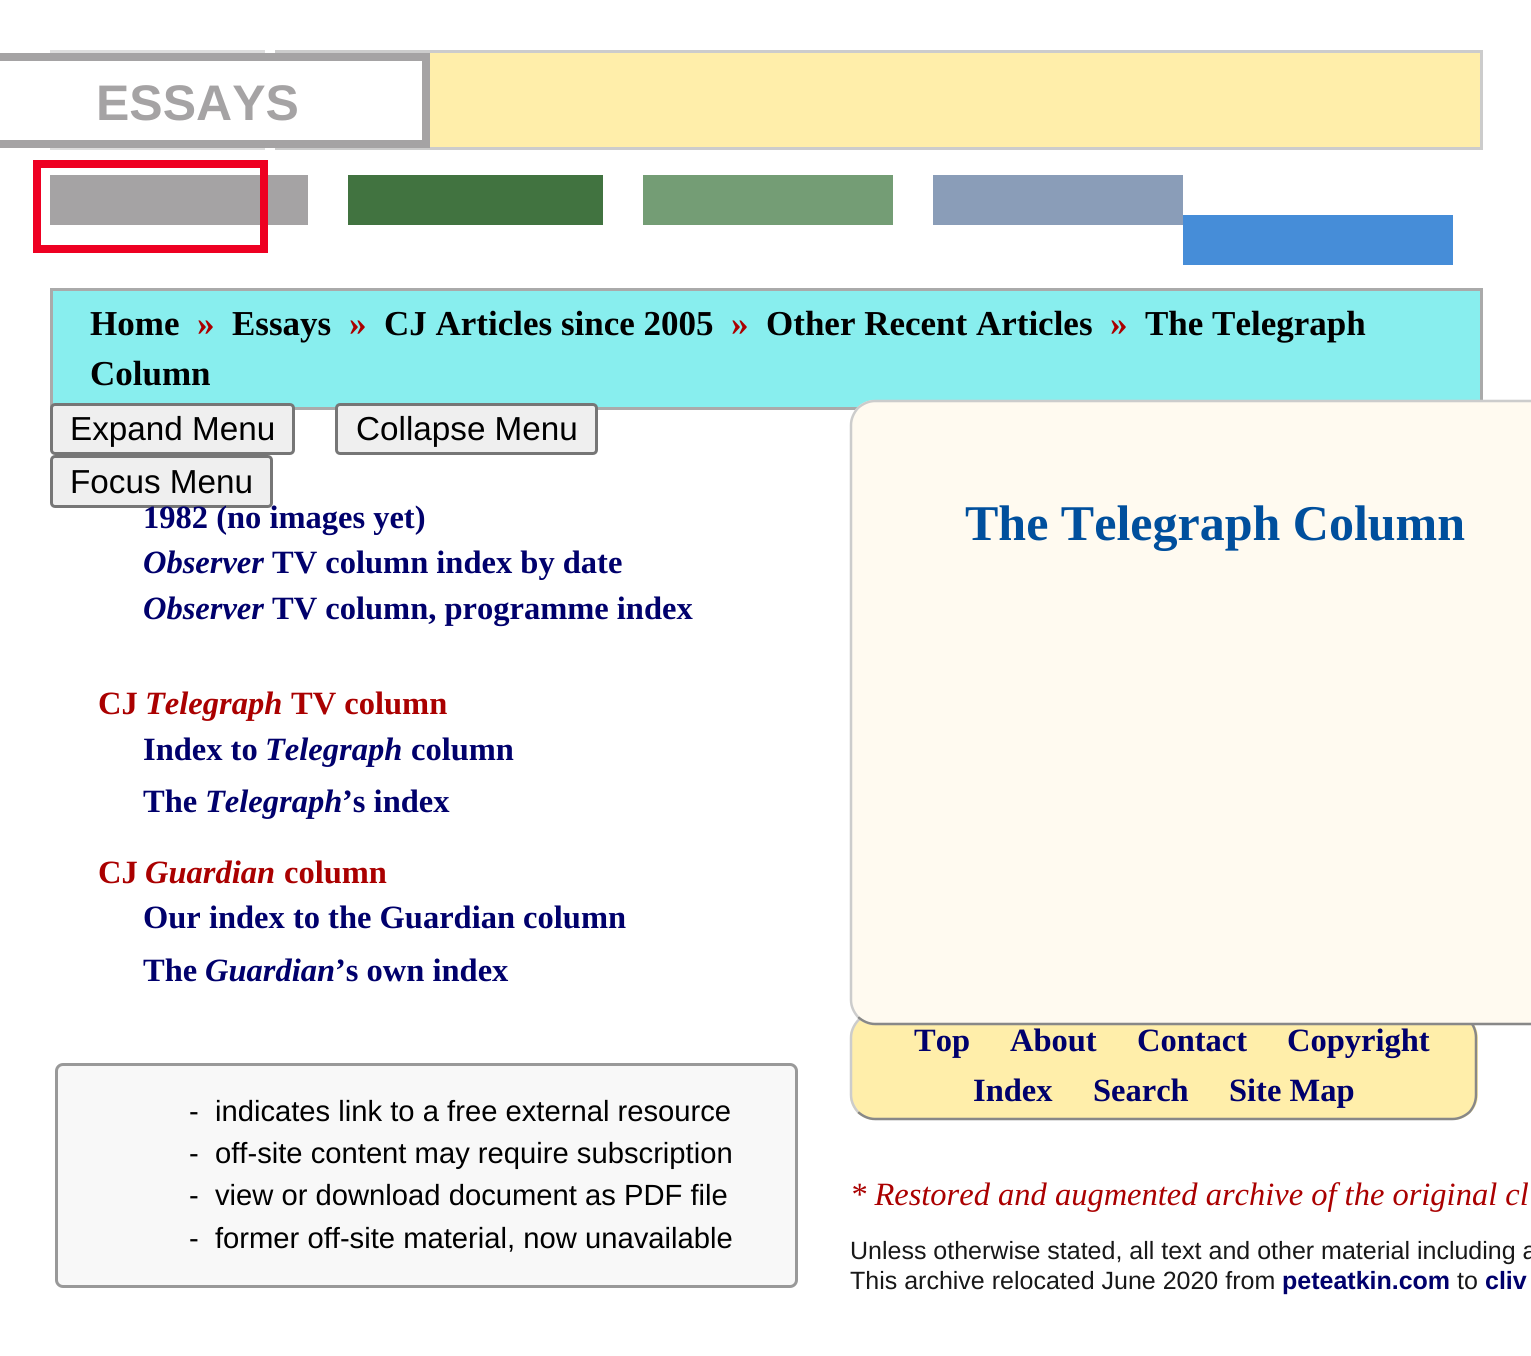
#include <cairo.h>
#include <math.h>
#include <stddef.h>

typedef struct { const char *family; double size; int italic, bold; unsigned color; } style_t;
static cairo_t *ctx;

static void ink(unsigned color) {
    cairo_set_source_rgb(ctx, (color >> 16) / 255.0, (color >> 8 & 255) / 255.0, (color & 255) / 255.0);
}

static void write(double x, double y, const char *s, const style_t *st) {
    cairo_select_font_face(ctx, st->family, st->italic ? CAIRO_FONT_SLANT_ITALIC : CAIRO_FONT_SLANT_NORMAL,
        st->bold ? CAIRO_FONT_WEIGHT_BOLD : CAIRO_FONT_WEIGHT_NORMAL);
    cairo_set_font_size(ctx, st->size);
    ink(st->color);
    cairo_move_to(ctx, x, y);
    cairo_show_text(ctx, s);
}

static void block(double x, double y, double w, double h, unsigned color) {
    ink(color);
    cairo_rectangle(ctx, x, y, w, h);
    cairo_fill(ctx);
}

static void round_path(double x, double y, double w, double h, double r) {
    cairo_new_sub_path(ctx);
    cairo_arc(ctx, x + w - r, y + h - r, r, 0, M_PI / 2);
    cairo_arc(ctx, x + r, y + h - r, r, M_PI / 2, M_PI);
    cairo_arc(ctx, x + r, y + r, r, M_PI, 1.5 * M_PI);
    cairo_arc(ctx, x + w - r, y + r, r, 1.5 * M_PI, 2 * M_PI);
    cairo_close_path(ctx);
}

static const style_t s1 = {"Liberation Sans", 50, 0, 1, 0xa5a3a4};
static const style_t s2 = {"Liberation Serif", 35, 0, 1, 0x000000};
static const style_t s3 = {"Liberation Serif", 35, 0, 1, 0xaa0000};
static const style_t s4 = {"Liberation Sans", 33.25, 0, 0, 0x000000};
static const style_t s5 = {"Liberation Serif", 32.5, 0, 1, 0x00006c};
static const style_t s6 = {"Liberation Serif", 32.5, 1, 1, 0x00006c};
static const style_t s7 = {"Liberation Serif", 32.5, 0, 1, 0xaa0000};
static const style_t s8 = {"Liberation Serif", 32.5, 1, 1, 0xaa0000};
static const style_t s9 = {"Liberation Sans", 29.2, 0, 0, 0x000000};
static const style_t s10 = {"Liberation Serif", 50, 0, 1, 0x004f9d};
static const style_t s11 = {"Liberation Serif", 32.5, 1, 0, 0xaa0000};
static const style_t s12 = {"Liberation Sans", 25, 0, 0, 0x181818};
static const style_t s13 = {"Liberation Sans", 25, 0, 1, 0x00006c};

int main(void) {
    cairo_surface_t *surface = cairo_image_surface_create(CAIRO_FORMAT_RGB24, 1531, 1356);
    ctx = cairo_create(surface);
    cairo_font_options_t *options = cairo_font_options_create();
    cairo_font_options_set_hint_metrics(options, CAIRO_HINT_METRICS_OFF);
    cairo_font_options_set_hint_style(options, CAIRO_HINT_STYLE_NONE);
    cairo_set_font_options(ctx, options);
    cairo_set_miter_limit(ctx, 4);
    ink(0xffffff);
    cairo_paint(ctx);
    block(50, 50, 215, 100, 0xdddddd);
    block(430, 53, 1050, 94, 0xffeeaa);
    cairo_rectangle(ctx, 276.5, 51.5, 1205, 97);
    ink(0xcccccc);
    cairo_set_line_width(ctx, 3);
    cairo_stroke(ctx);
    block(50, 61, 228, 79, 0xffffff);
    cairo_rectangle(ctx, -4, 57, 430, 87);
    ink(0xa5a3a4);
    cairo_set_line_width(ctx, 8);
    cairo_stroke(ctx);
    write(96, 120, "ESSAYS", &s1);
    block(50, 175, 258, 50, 0xa5a3a4);
    cairo_rectangle(ctx, 37, 164, 227, 85);
    ink(0xee0022);
    cairo_stroke(ctx);
    block(348, 175, 255, 50, 0x417340);
    block(643, 175, 250, 50, 0x749d75);
    block(933, 175, 250, 50, 0x8a9db8);
    block(1183, 215, 270, 50, 0x468dd8);
    ink(0x88eeee);
    cairo_rectangle(ctx, 51.5, 289.5, 1430, 119);
    cairo_fill_preserve(ctx);
    ink(0xaaaaaa);
    cairo_set_line_width(ctx, 3);
    cairo_stroke(ctx);
    write(90, 335, "Home", &s2);
    write(197, 335, "»", &s3);
    write(232, 335, "Essays", &s2);
    write(349, 335, "»", &s3);
    write(384, 335, "CJ Articles since 2005", &s2);
    write(731, 335, "»", &s3);
    write(766, 335, "Other Recent Articles", &s2);
    write(1110, 335, "»", &s3);
    write(1145, 335, "The Telegraph", &s2);
    write(90, 385, "Column", &s2);
    ink(0xefefef);
    round_path(51.5, 404.5, 242, 49, 3.5);
    cairo_fill_preserve(ctx);
    ink(0x767676);
    cairo_stroke(ctx);
    write(70, 440, "Expand Menu", &s4);
    ink(0xefefef);
    round_path(336.5, 404.5, 260, 49, 3.5);
    cairo_fill_preserve(ctx);
    ink(0x767676);
    cairo_stroke(ctx);
    write(356, 440, "Collapse Menu", &s4);
    ink(0xefefef);
    round_path(51.5, 456.5, 220, 50, 3.5);
    cairo_fill_preserve(ctx);
    ink(0x767676);
    cairo_stroke(ctx);
    write(70, 493, "Focus Menu", &s4);
    write(143, 528, "1982 (no images yet)", &s5);
    write(143, 573, "Observer", &s6);
    write(272, 573, "TV column index by date", &s5);
    write(143, 619, "Observer", &s6);
    write(272, 619, "TV column, programme index", &s5);
    write(98, 714, "CJ", &s7);
    write(145, 714, "Telegraph", &s8);
    write(291, 714, "TV column", &s7);
    write(143, 760, "Index to", &s5);
    write(265, 760, "Telegraph", &s6);
    write(411, 760, "column", &s5);
    write(143, 812, "The", &s5);
    write(205, 812, "Telegraph", &s6);
    write(342, 812, "’s index", &s5);
    write(98, 883, "CJ", &s7);
    write(145, 883, "Guardian", &s8);
    write(284, 883, "column", &s7);
    write(143, 928, "Our index to the Guardian column", &s5);
    write(143, 981, "The", &s5);
    write(205, 981, "Guardian", &s6);
    write(335, 981, "’s own index", &s5);
    ink(0xf8f8f8);
    round_path(56.5, 1064.5, 740, 222, 6.5);
    cairo_fill_preserve(ctx);
    ink(0x999999);
    cairo_stroke(ctx);
    write(189, 1121, "-  indicates link to a free external resource", &s9);
    write(189, 1163, "-  off-site content may require subscription", &s9);
    write(189, 1205, "-  view or download document as PDF file", &s9);
    write(189, 1248, "-  former off-site material, now unavailable", &s9);
    ink(0xffeeaa);
    round_path(850, 1013, 628, 107, 25);
    cairo_fill(ctx);
    cairo_new_path(ctx);
    cairo_move_to(ctx, 1469.5, 1020.5);
    cairo_curve_to(ctx, 1473.5, 1025, 1476, 1031, 1476, 1037.5);
    cairo_line_to(ctx, 1476, 1095);
    cairo_curve_to(ctx, 1476, 1101.5, 1473.5, 1107.5, 1469.5, 1112);
    cairo_curve_to(ctx, 1465, 1116, 1459, 1119, 1452.5, 1119);
    cairo_line_to(ctx, 875, 1119);
    cairo_curve_to(ctx, 868.5, 1119, 862.5, 1116, 858, 1112);
    ink(0x888888);
    cairo_set_line_width(ctx, 2.5);
    cairo_stroke(ctx);
    cairo_new_path(ctx);
    cairo_move_to(ctx, 858, 1112);
    cairo_curve_to(ctx, 854, 1107.5, 851, 1101.5, 851, 1095);
    cairo_line_to(ctx, 851, 1037.5);
    cairo_curve_to(ctx, 851, 1031, 854, 1025, 858, 1020.5);
    cairo_curve_to(ctx, 862.5, 1016.5, 868.5, 1014, 875, 1014);
    cairo_line_to(ctx, 1452.5, 1014);
    cairo_curve_to(ctx, 1459, 1014, 1465, 1016.5, 1469.5, 1020.5);
    ink(0xcccccc);
    cairo_stroke(ctx);
    ink(0xfffaf0);
    round_path(850, 400, 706, 625, 25);
    cairo_fill(ctx);
    cairo_new_path(ctx);
    cairo_move_to(ctx, 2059.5, 408);
    cairo_curve_to(ctx, 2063.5, 412.5, 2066, 418.5, 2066, 425);
    cairo_line_to(ctx, 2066, 1000);
    cairo_curve_to(ctx, 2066, 1006.5, 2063.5, 1012.5, 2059.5, 1017);
    cairo_curve_to(ctx, 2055, 1021, 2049, 1024, 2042.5, 1024);
    cairo_line_to(ctx, 875, 1024);
    cairo_curve_to(ctx, 868.5, 1024, 862.5, 1021, 858, 1017);
    ink(0x888888);
    cairo_stroke(ctx);
    cairo_new_path(ctx);
    cairo_move_to(ctx, 858, 1017);
    cairo_curve_to(ctx, 854, 1012.5, 851, 1006.5, 851, 1000);
    cairo_line_to(ctx, 851, 425);
    cairo_curve_to(ctx, 851, 418.5, 854, 412.5, 858, 408);
    cairo_curve_to(ctx, 862.5, 404, 868.5, 401, 875, 401);
    cairo_line_to(ctx, 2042.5, 401);
    cairo_curve_to(ctx, 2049, 401, 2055, 404, 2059.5, 408);
    ink(0xcccccc);
    cairo_stroke(ctx);
    write(965, 540, "The Telegraph Column", &s10);
    write(914, 1051, "Top", &s5);
    write(1010, 1051, "About", &s5);
    write(1137, 1051, "Contact", &s5);
    write(1287, 1051, "Copyright", &s5);
    write(973, 1101, "Index", &s5);
    write(1093, 1101, "Search", &s5);
    write(1229, 1101, "Site Map", &s5);
    write(850, 1205, "* Restored and augmented archive of the original cl", &s11);
    write(850, 1259, "Unless otherwise stated, all text and other material including a", &s12);
    write(850, 1289, "This archive relocated June 2020 from", &s12);
    write(1282, 1289, "peteatkin.com", &s13);
    write(1457, 1289, "to", &s12);
    write(1485, 1289, "cliv", &s13);
    cairo_surface_write_to_png(surface, "screenshot.png");
    cairo_font_options_destroy(options);
    cairo_destroy(ctx);
    cairo_surface_destroy(surface);
    return 0;
}
